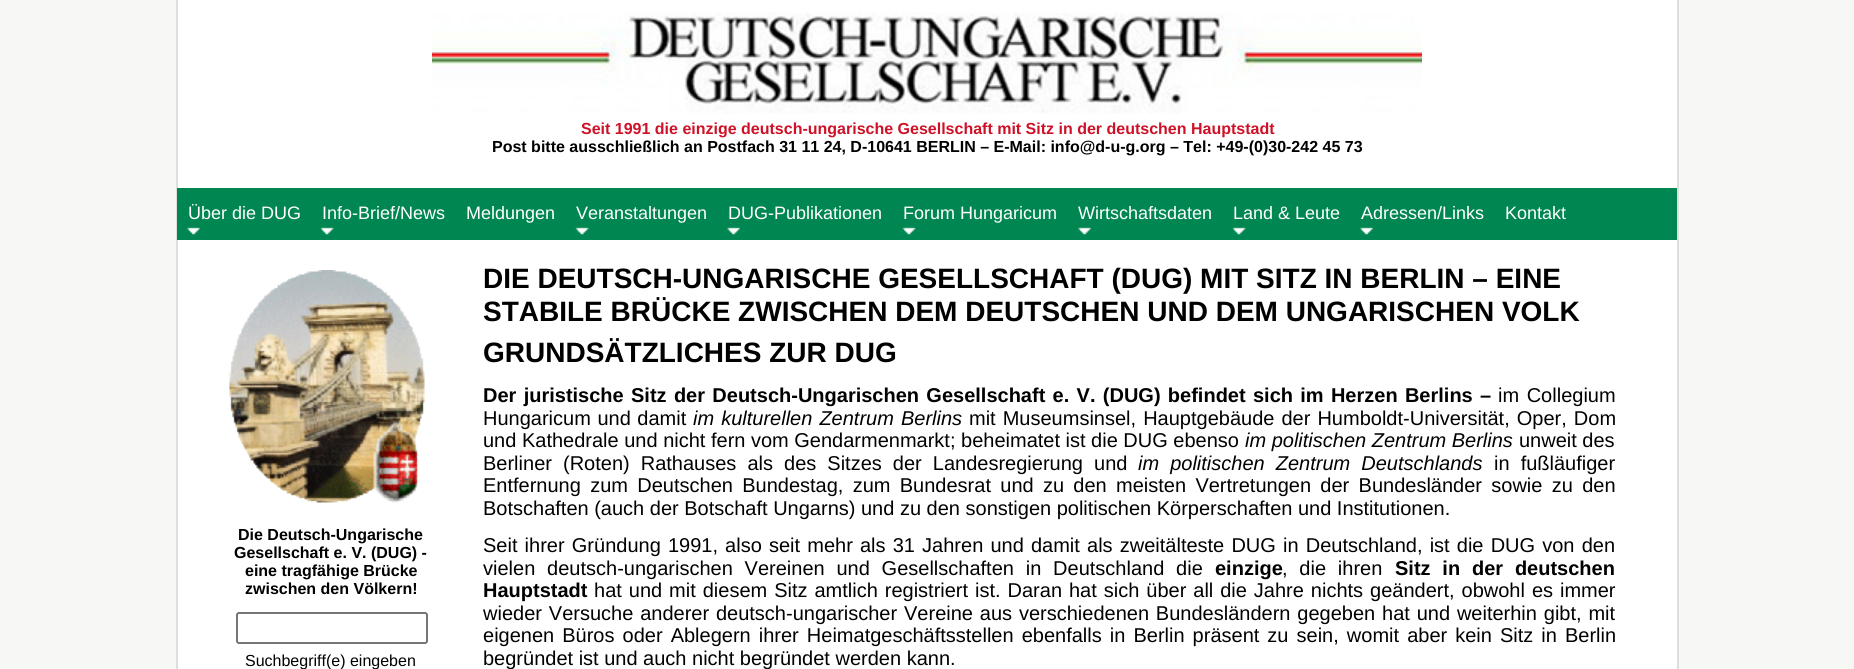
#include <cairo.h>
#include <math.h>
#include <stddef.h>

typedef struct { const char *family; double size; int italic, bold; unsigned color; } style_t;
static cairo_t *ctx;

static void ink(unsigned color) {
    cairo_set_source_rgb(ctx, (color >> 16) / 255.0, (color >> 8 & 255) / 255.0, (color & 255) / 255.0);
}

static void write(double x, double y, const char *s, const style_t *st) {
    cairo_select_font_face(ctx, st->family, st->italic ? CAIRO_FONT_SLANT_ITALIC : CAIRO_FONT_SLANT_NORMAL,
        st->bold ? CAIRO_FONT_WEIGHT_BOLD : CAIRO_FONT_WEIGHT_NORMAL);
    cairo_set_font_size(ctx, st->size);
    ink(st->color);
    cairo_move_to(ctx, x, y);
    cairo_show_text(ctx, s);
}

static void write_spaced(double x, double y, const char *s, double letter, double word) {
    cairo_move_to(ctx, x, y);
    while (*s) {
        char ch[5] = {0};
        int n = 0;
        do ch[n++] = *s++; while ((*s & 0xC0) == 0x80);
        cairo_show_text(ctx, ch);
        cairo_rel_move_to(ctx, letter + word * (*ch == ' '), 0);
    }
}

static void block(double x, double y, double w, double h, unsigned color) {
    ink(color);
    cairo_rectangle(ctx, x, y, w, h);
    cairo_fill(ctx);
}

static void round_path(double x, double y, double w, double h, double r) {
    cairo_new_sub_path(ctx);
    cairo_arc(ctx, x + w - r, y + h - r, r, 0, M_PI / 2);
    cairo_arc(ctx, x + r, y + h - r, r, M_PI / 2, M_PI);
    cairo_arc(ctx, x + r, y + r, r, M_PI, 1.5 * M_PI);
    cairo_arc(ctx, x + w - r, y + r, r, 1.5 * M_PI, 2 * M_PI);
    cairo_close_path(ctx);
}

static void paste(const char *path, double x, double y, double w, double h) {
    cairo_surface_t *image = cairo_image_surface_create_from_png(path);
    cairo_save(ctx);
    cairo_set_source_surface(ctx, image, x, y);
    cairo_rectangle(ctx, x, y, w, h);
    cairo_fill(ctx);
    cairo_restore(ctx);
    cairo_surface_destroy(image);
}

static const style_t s1 = {"Liberation Sans", 16, 0, 1, 0xce1126};
static const style_t s2 = {"Liberation Sans", 16, 0, 1, 0x000000};
static const style_t s3 = {"Liberation Sans", 18, 0, 0, 0xffffff};
static const style_t s4 = {"Liberation Sans", 16, 0, 0, 0x000000};
static const style_t s5 = {"Liberation Sans", 28, 0, 1, 0x000000};
static const style_t s6 = {"Liberation Sans", 20, 0, 0, 0x000000};
static const style_t s7 = {"Liberation Sans", 20, 1, 0, 0x000000};
static const style_t s8 = {"Liberation Sans", 20, 0, 1, 0x000000};

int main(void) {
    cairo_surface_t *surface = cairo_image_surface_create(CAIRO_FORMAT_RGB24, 1854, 669);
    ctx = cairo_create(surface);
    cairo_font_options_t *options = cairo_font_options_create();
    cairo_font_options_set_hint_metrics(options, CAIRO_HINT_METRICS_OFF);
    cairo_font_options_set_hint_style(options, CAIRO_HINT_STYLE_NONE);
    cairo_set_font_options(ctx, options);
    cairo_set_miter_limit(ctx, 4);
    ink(0xf7f7f5);
    cairo_paint(ctx);
    block(178, 0, 1499, 669, 0xffffff);
    block(1677, 0, 2, 669, 0xdce0d8);
    block(176, 0, 2, 669, 0xdce0d8);
    paste("pic1.png", 432, 12, 990, 102);
    write(581, 134, "Seit 1991 die einzige deutsch-ungarische Gesellschaft mit Sitz in der deutschen Hauptstadt", &s1);
    write(492, 152, "Post bitte ausschließlich an Postfach 31 11 24, D-10641 BERLIN – E-Mail: info@d-u-g.org – Tel: +49-(0)30-242 45 73", &s2);
    block(177, 188, 1500, 52, 0x008751);
    paste("pic2.png", 187, 227, 13, 8);
    write(188, 219, "Über die DUG", &s3);
    paste("pic3.png", 320, 227, 14, 8);
    write(322, 219, "Info-Brief/News", &s3);
    write(466, 219, "Meldungen", &s3);
    paste("pic4.png", 575, 227, 14, 8);
    write(576, 219, "Veranstaltungen", &s3);
    paste("pic5.png", 727, 227, 13, 8);
    write(728, 219, "DUG-Publikationen", &s3);
    paste("pic3.png", 902, 227, 14, 8);
    write(903, 219, "Forum Hungaricum", &s3);
    paste("pic5.png", 1078, 227, 13, 8);
    write(1078, 219, "Wirtschaftsdaten", &s3);
    paste("pic3.png", 1232, 227, 14, 8);
    write(1233, 219, "Land & Leute", &s3);
    paste("pic5.png", 1360, 227, 13, 8);
    write(1361, 219, "Adressen/Links", &s3);
    write(1505, 219, "Kontakt", &s3);
    paste("pic6.png", 229, 270, 196, 233);
    write(238, 540, "Die Deutsch-Ungarische", &s2);
    write(234, 558, "Gesellschaft e. V. (DUG) -", &s2);
    write(245, 576, "eine tragfähige Brücke", &s2);
    write(245, 594, "zwischen den Völkern!", &s2);
    round_path(237, 613, 190, 30, 2);
    ink(0x767676);
    cairo_stroke(ctx);
    write(245, 666, "Suchbegriff(e) eingeben", &s4);
    write(483, 288, "DIE DEUTSCH-UNGARISCHE GESELLSCHAFT (DUG) MIT SITZ IN BERLIN – EINE", &s5);
    write(483, 321, "STABILE BRÜCKE ZWISCHEN DEM DEUTSCHEN UND DEM UNGARISCHEN VOLK", &s5);
    write(483, 362, "GRUNDSÄTZLICHES ZUR DUG", &s5);
    cairo_set_font_size(ctx, 20);
    write_spaced(483, 402, "Der juristische Sitz der Deutsch-Ungarischen Gesellschaft e. V. (DUG) befindet sich im Herzen Berlins –", 0, 1.75);
    cairo_select_font_face(ctx, "Liberation Sans", CAIRO_FONT_SLANT_NORMAL, CAIRO_FONT_WEIGHT_NORMAL);
    write_spaced(1498, 402, "im Collegium", 0, 2);
    write_spaced(483, 425, "Hungaricum und damit", 0, 1);
    cairo_select_font_face(ctx, "Liberation Sans", CAIRO_FONT_SLANT_ITALIC, CAIRO_FONT_WEIGHT_NORMAL);
    write_spaced(693, 425, "im kulturellen Zentrum Berlins", 0, 1.5);
    cairo_select_font_face(ctx, "Liberation Sans", CAIRO_FONT_SLANT_NORMAL, CAIRO_FONT_WEIGHT_NORMAL);
    write_spaced(969, 425, "mit Museumsinsel, Hauptgebäude der Humboldt-Universität, Oper, Dom", 0, 1.5);
    write(483, 447, "und Kathedrale und nicht fern vom Gendarmenmarkt; beheimatet ist die DUG ebenso", &s6);
    write(1245, 447, "im politischen Zentrum Berlins", &s7);
    write(1519, 447, "unweit des", &s6);
    write_spaced(483, 470, "Berliner (Roten) Rathauses als des Sitzes der Landesregierung und", 0, 5.5);
    cairo_select_font_face(ctx, "Liberation Sans", CAIRO_FONT_SLANT_ITALIC, CAIRO_FONT_WEIGHT_NORMAL);
    write_spaced(1138, 470, "im politischen Zentrum Deutschlands", 0, 5.5);
    cairo_select_font_face(ctx, "Liberation Sans", CAIRO_FONT_SLANT_NORMAL, CAIRO_FONT_WEIGHT_NORMAL);
    write_spaced(1494, 470, "in fußläufiger", 0, 5.5);
    write_spaced(483, 492, "Entfernung zum Deutschen Bundestag, zum Bundesrat und zu den meisten Vertretungen der Bundesländer sowie zu den", 0, 3.75);
    write(483, 515, "Botschaften (auch der Botschaft Ungarns) und zu den sonstigen politischen Körperschaften und Institutionen.", &s6);
    write_spaced(483, 552, "Seit ihrer Gründung 1991, also seit mehr als 31 Jahren und damit als zweitälteste DUG in Deutschland, ist die DUG von den", 0, 1.6);
    write_spaced(483, 575, "vielen deutsch-ungarischen Vereinen und Gesellschaften in Deutschland die", 0, 6.25);
    write(1215, 575, "einzige", &s8);
    cairo_select_font_face(ctx, "Liberation Sans", CAIRO_FONT_SLANT_NORMAL, CAIRO_FONT_WEIGHT_NORMAL);
    write_spaced(1282, 575, ", die ihren", 0, 6.25);
    cairo_select_font_face(ctx, "Liberation Sans", CAIRO_FONT_SLANT_NORMAL, CAIRO_FONT_WEIGHT_BOLD);
    write_spaced(1395, 575, "Sitz in der deutschen", 0, 6.25);
    write(483, 597, "Hauptstadt", &s8);
    cairo_select_font_face(ctx, "Liberation Sans", CAIRO_FONT_SLANT_NORMAL, CAIRO_FONT_WEIGHT_NORMAL);
    write_spaced(594, 597, "hat und mit diesem Sitz amtlich registriert ist. Daran hat sich über all die Jahre nichts geändert, obwohl es immer", 0, 1.4);
    write_spaced(483, 620, "wieder Versuche anderer deutsch-ungarischer Vereine aus verschiedenen Bundesländern gegeben hat und weiterhin gibt, mit", 0, 1.3);
    write_spaced(483, 642, "eigenen Büros oder Ablegern ihrer Heimatgeschäftsstellen ebenfalls in Berlin präsent zu sein, womit aber kein Sitz in Berlin", 0, 2.5);
    write(483, 665, "begründet ist und auch nicht begründet werden kann.", &s6);
    cairo_surface_write_to_png(surface, "screenshot.png");
    cairo_font_options_destroy(options);
    cairo_destroy(ctx);
    cairo_surface_destroy(surface);
    return 0;
}
